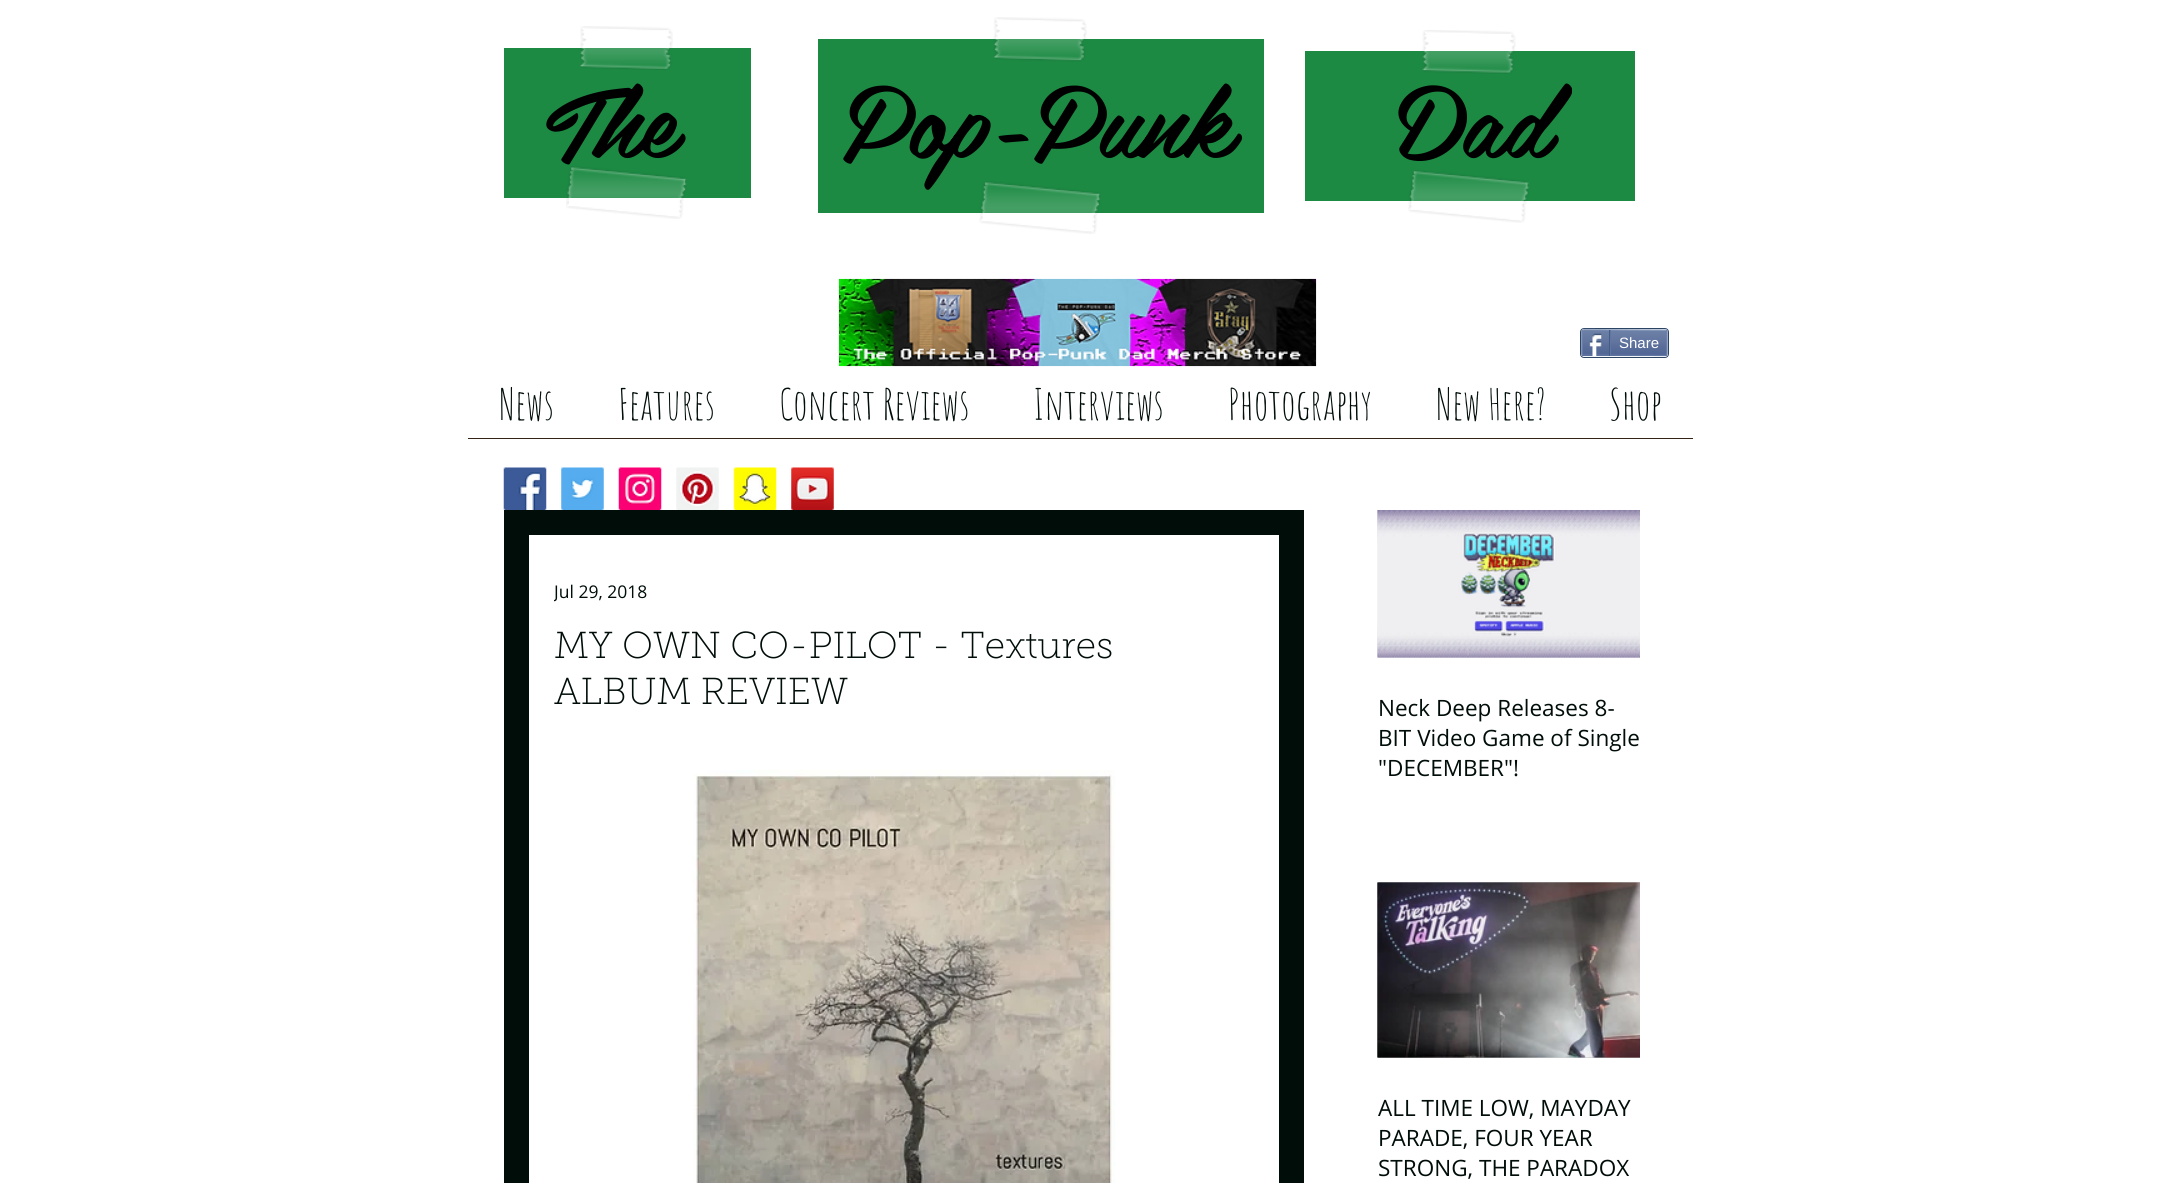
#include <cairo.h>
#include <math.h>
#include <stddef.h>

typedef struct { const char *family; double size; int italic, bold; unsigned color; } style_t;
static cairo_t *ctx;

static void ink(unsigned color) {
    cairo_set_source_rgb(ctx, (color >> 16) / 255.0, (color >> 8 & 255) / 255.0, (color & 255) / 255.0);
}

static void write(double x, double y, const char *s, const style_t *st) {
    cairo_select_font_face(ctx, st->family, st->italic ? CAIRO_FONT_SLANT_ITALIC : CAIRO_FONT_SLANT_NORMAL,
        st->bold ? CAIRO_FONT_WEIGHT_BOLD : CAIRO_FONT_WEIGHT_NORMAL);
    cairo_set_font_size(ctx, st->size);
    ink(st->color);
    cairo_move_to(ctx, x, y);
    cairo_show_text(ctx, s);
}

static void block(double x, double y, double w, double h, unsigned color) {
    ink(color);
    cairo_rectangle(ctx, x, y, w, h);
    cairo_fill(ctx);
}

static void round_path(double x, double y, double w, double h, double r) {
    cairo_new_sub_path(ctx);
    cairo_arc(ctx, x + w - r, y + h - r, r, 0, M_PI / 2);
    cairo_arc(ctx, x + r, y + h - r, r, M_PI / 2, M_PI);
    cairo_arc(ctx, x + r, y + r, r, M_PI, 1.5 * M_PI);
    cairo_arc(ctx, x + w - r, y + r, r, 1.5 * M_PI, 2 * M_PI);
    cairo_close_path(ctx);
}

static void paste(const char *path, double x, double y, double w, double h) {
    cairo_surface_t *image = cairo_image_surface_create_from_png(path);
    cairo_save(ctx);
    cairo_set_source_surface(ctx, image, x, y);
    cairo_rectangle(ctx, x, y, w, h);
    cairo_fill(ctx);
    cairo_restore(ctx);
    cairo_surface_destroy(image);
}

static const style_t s1 = {"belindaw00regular", 100, 0, 0, 0x000000};
static const style_t s2 = {"Liberation Sans", 15, 0, 0, 0xffffff};
static const style_t s3 = {"Amatic SC", 42.5, 0, 0, 0x000d09};
static const style_t s4 = {"Open Sans", 17.5, 0, 0, 0x000d09};
static const style_t s5 = {"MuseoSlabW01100 Thin", 37.5, 0, 0, 0x000d09};
static const style_t s6 = {"Open Sans", 22.5, 0, 0, 0x000d09};

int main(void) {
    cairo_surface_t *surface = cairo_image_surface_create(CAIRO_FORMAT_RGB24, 2159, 1183);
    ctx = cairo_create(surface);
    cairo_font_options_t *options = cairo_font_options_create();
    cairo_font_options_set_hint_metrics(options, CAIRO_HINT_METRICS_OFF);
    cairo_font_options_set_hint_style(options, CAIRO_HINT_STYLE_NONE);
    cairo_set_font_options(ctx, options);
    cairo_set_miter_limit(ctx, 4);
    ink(0xffffff);
    cairo_paint(ctx);
    block(504, 48, 247, 150, 0x1c8a43);
    paste("pic1.png", 580, 26, 93, 44);
    paste("pic2.png", 566, 166, 121, 53);
    block(818, 39, 446, 174, 0x1c8a43);
    paste("pic3.png", 993, 17, 94, 45);
    paste("pic4.png", 979, 181, 122, 53);
    block(1305, 51, 330, 150, 0x1c8a43);
    paste("pic5.png", 1422, 30, 94, 44);
    paste("pic6.png", 1408, 170, 121, 53);
    write(546, 158, "The     Pop-Punk     Dad", &s1);
    paste("pic7.png", 838, 278, 479, 89);
    round_path(1580.5, 328.5, 88, 29, 3.5);
    ink(0x2d4565);
    cairo_set_line_width(ctx, 1);
    cairo_stroke(ctx);
    paste("pic8.png", 1581, 330, 87, 27);
    cairo_new_path(ctx);
    cairo_move_to(ctx, 1582.5, 330);
    cairo_line_to(ctx, 1584, 329.5);
    cairo_line_to(ctx, 1666.5, 330);
    ink(0x9aabc6);
    cairo_set_line_width(ctx, 1.2);
    cairo_stroke(ctx);
    cairo_new_path(ctx);
    cairo_move_to(ctx, 1666.5, 330);
    cairo_line_to(ctx, 1667, 331);
    cairo_line_to(ctx, 1667, 354);
    cairo_line_to(ctx, 1666.5, 355);
    ink(0x6f83ad);
    cairo_stroke(ctx);
    cairo_new_path(ctx);
    cairo_move_to(ctx, 1666.5, 355);
    cairo_line_to(ctx, 1665, 355.5);
    cairo_line_to(ctx, 1582.5, 355);
    ink(0x6176a3);
    cairo_stroke(ctx);
    cairo_new_path(ctx);
    cairo_move_to(ctx, 1582.5, 355);
    cairo_line_to(ctx, 1582, 354);
    cairo_line_to(ctx, 1582, 331);
    cairo_line_to(ctx, 1582.5, 330);
    ink(0x6f83ad);
    cairo_stroke(ctx);
    paste("pic9.png", 1589, 333, 13, 23);
    block(1609, 330, 1, 26, 0x425e85);
    write(1619, 348, "Share", &s2);
    block(1610, 330, 1, 25, 0x6176a3);
    write(499, 420, "News", &s3);
    write(618, 420, "Features", &s3);
    write(779, 420, "Concert Reviews", &s3);
    write(1033, 420, "Interviews", &s3);
    write(1228, 420, "Photography", &s3);
    write(1436, 420, "New Here?", &s3);
    write(1609, 420, "Shop", &s3);
    block(468, 438, 1225, 1, 0x342216);
    paste("pic10.png", 503, 467, 44, 43);
    paste("pic11.png", 561, 467, 43, 43);
    paste("pic12.png", 618, 467, 44, 43);
    paste("pic13.png", 676, 467, 43, 43);
    paste("pic14.png", 733, 467, 44, 43);
    paste("pic15.png", 791, 467, 43, 43);
    block(504, 510, 800, 673, 0x000d09);
    block(529, 535, 750, 648, 0xffffff);
    cairo_save(ctx);
    cairo_rectangle(ctx, 554, 578, 94, 26);
    cairo_clip(ctx);
    write(554, 598, "Jul 29, 2018", &s4);
    cairo_restore(ctx);
    write(554, 658, "MY OWN CO-PILOT - Textures", &s5);
    write(554, 704, "ALBUM REVIEW", &s5);
    paste("pic16.png", 693, 770, 422, 413);
    paste("pic17.png", 1377, 510, 263, 148);
    paste("pic18.png", 1377, 510, 263, 148);
    write(1378, 716, "Neck Deep Releases 8-", &s6);
    write(1378, 746, "BIT Video Game of Single", &s6);
    write(1378, 776, "\"DECEMBER\"!", &s6);
    paste("pic19.png", 1377, 882, 263, 176);
    paste("pic20.png", 1377, 882, 263, 176);
    write(1378, 1116, "ALL TIME LOW, MAYDAY", &s6);
    write(1378, 1146, "PARADE, FOUR YEAR", &s6);
    write(1378, 1176, "STRONG, THE PARADOX", &s6);
    cairo_surface_write_to_png(surface, "screenshot.png");
    cairo_font_options_destroy(options);
    cairo_destroy(ctx);
    cairo_surface_destroy(surface);
    return 0;
}
